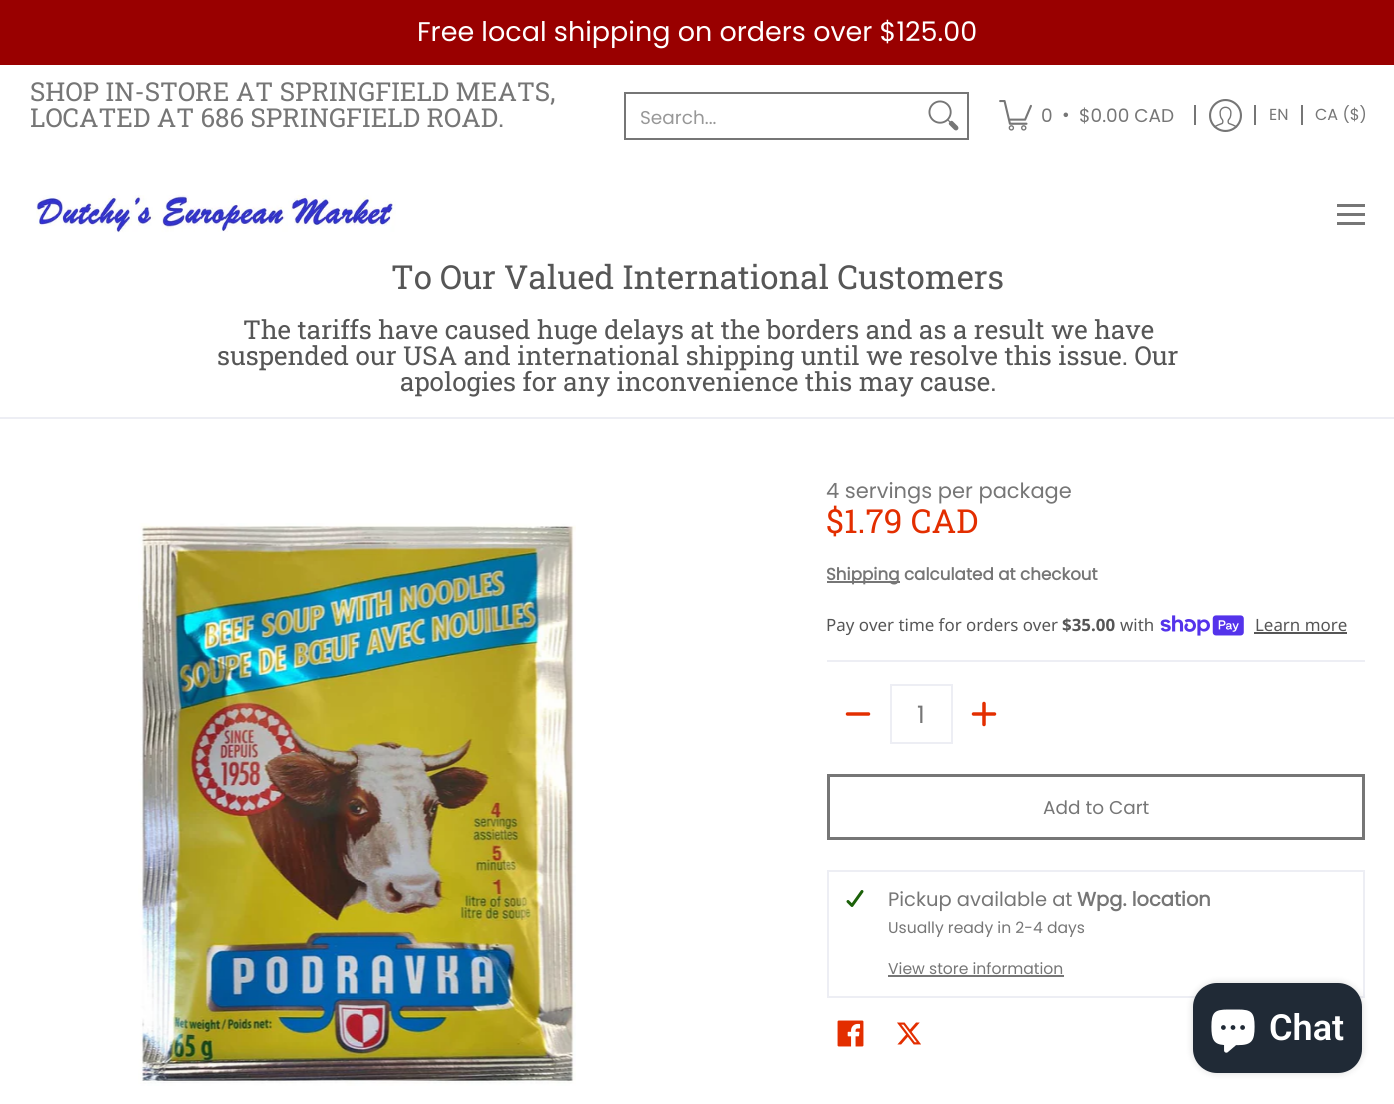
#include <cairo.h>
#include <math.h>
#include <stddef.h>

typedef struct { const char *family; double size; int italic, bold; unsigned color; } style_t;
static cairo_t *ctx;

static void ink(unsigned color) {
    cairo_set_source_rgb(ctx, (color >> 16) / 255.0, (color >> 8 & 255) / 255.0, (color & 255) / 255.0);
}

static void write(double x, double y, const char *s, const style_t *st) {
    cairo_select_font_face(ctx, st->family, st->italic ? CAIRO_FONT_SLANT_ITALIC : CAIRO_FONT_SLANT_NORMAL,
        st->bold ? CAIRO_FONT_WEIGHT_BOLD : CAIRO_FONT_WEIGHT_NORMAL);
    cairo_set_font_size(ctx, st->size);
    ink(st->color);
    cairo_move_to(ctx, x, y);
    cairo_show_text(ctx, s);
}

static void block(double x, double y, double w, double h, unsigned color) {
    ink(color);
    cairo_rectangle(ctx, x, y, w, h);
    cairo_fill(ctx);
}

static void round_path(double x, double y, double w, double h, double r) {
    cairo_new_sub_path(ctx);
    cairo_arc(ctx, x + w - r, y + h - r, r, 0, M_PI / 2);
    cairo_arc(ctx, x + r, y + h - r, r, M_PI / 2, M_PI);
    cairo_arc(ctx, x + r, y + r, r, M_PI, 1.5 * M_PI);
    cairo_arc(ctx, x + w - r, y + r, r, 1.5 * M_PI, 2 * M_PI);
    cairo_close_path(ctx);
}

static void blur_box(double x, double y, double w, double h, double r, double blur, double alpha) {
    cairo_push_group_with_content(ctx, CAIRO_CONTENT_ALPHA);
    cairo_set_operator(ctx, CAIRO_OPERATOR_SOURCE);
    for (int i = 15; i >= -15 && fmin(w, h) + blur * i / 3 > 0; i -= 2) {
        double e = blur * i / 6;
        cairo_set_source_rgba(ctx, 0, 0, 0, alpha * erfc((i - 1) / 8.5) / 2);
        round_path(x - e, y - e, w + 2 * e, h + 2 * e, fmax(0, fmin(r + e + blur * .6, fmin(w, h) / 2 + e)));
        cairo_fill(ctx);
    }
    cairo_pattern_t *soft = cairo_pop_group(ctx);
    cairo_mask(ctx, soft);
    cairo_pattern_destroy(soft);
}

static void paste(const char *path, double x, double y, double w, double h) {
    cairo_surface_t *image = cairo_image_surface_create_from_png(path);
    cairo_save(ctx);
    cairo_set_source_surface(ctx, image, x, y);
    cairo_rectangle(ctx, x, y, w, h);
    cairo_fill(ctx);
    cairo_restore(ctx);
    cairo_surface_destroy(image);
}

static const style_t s1 = {"Poppins", 27, 0, 0, 0xffffff};
static const style_t s2 = {"Roboto Slab", 26.05, 0, 0, 0x767676};
static const style_t s3 = {"Poppins", 18.5, 0, 0, 0x989898};
static const style_t s4 = {"Poppins", 18.5, 0, 0, 0x767676};
static const style_t s5 = {"Poppins", 16, 0, 0, 0x767676};
static const style_t s6 = {"Roboto Slab", 33.1, 0, 0, 0x565656};
static const style_t s7 = {"Roboto Slab", 26.05, 0, 0, 0x565656};
static const style_t s8 = {"Poppins", 21, 0, 0, 0x767676};
static const style_t s9 = {"Roboto Slab", 33.1, 0, 0, 0xe32e00};
static const style_t s10 = {"Poppins", 16.75, 0, 1, 0x767676};
static const style_t s11 = {"Noto Sans", 16.9, 0, 0, 0x565656};
static const style_t s12 = {"Noto Sans", 16.9, 0, 1, 0x565656};
static const style_t s13 = {"Poppins", 24, 0, 0, 0x767676};
static const style_t s14 = {"Poppins", 19.5, 0, 0, 0x767676};
static const style_t s15 = {"Poppins", 19.5, 0, 1, 0x767676};
static const style_t s16 = {"Poppins", 15.6, 0, 0, 0x767676};
static const style_t s17 = {"Roboto SemiBold", 36, 0, 0, 0xffffff};

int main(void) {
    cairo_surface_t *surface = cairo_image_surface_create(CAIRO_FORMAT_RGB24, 1394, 1104);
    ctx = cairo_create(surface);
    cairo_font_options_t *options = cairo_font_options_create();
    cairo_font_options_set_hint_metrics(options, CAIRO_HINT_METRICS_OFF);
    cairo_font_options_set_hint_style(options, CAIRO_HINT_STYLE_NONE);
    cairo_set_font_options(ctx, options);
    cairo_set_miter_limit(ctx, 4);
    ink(0xffffff);
    cairo_paint(ctx);
    block(0, 0, 1394, 65, 0x990000);
    write(417, 41, "Free local shipping on orders over $125.00", &s1);
    write(30, 101, "SHOP IN-STORE AT SPRINGFIELD MEATS,", &s2);
    write(30, 127, "LOCATED AT 686 SPRINGFIELD ROAD.", &s2);
    cairo_rectangle(ctx, 625, 93, 343, 46);
    cairo_stroke(ctx);
    write(640, 124, "Search...", &s3);
    paste("pic1.png", 928, 100, 31, 31);
    paste("pic2.png", 999, 100, 33, 31);
    write(1041, 122, "0", &s4);
    write(1062, 121, "•", &s4);
    write(1079, 122, "$0.00 CAD", &s4);
    block(1194, 105, 2, 20, 0x767676);
    paste("pic3.png", 1209, 99, 33, 33);
    block(1254, 105, 2, 20, 0x767676);
    write(1269, 120, "EN", &s5);
    block(1301, 105, 2, 20, 0x767676);
    write(1315, 120, "CA ($)", &s5);
    paste("pic4.png", 36, 195, 360, 38);
    block(1337, 204, 28, 3, 0x767676);
    block(1337, 222, 28, 3, 0x767676);
    block(1337, 213, 28, 3, 0x767676);
    block(0, 417, 1394, 2, 0xedeef4);
    write(391, 289, "To Our Valued International Customers", &s6);
    write(243, 339, "The tariffs have caused huge delays at the borders and as a result we have", &s7);
    write(217, 365, "suspended our USA and international shipping until we resolve this issue. Our", &s7);
    write(400, 391, "apologies for any inconvenience this may cause.", &s7);
    paste("pic5.png", 138, 523, 438, 563);
    write(826, 498, "4 servings per package", &s8);
    write(826, 533, "$1.79 CAD", &s9);
    block(827, 581, 73, 2, 0x767676);
    write(826, 580, "Shipping calculated at checkout", &s10);
    block(827, 660, 538, 2, 0xedeef4);
    write(826, 631, "Pay over time for orders over", &s11);
    write(1062, 631, "$35.00", &s12);
    write(1120, 631, "with", &s11);
    paste("pic6.png", 1160, 615, 84, 21);
    write(1255, 631, "Learn more", &s11);
    block(1254, 632, 93, 2, 0x565656);
    cairo_new_path(ctx);
    cairo_move_to(ctx, 868.5, 714);
    cairo_line_to(ctx, 847.5, 714);
    ink(0xe32e00);
    cairo_set_line_width(ctx, 3.5);
    cairo_set_line_cap(ctx, CAIRO_LINE_CAP_ROUND);
    cairo_set_line_join(ctx, CAIRO_LINE_JOIN_ROUND);
    cairo_stroke(ctx);
    cairo_rectangle(ctx, 891, 685, 61, 58);
    ink(0xedeef4);
    cairo_set_line_width(ctx, 2);
    cairo_set_line_cap(ctx, CAIRO_LINE_CAP_BUTT);
    cairo_set_line_join(ctx, CAIRO_LINE_JOIN_MITER);
    cairo_stroke(ctx);
    write(917, 723, "1", &s13);
    cairo_new_path(ctx);
    cairo_move_to(ctx, 984, 703.5);
    cairo_line_to(ctx, 984, 724.5);
    cairo_move_to(ctx, 994.5, 714);
    cairo_line_to(ctx, 973.5, 714);
    ink(0xe32e00);
    cairo_set_line_width(ctx, 3.5);
    cairo_set_line_cap(ctx, CAIRO_LINE_CAP_ROUND);
    cairo_set_line_join(ctx, CAIRO_LINE_JOIN_ROUND);
    cairo_stroke(ctx);
    cairo_rectangle(ctx, 828.5, 775.5, 535, 63);
    ink(0x767676);
    cairo_set_line_width(ctx, 3);
    cairo_set_line_cap(ctx, CAIRO_LINE_CAP_BUTT);
    cairo_set_line_join(ctx, CAIRO_LINE_JOIN_MITER);
    cairo_stroke(ctx);
    write(1043, 814, "Add to Cart", &s4);
    cairo_rectangle(ctx, 828, 871, 536, 126);
    ink(0xedeef4);
    cairo_set_line_width(ctx, 2);
    cairo_stroke(ctx);
    cairo_new_path(ctx);
    cairo_move_to(ctx, 862, 891.5);
    cairo_line_to(ctx, 852, 905.5);
    cairo_line_to(ctx, 848, 901.5);
    ink(0x1b6109);
    cairo_set_line_width(ctx, 3);
    cairo_set_line_cap(ctx, CAIRO_LINE_CAP_ROUND);
    cairo_set_line_join(ctx, CAIRO_LINE_JOIN_ROUND);
    cairo_stroke(ctx);
    write(888, 906, "Pickup available at", &s14);
    write(1077, 906, "Wpg. location", &s15);
    write(888, 933, "Usually ready in 2-4 days", &s16);
    write(888, 974, "View store information", &s16);
    block(888, 975, 176, 2, 0x767676);
    paste("pic7.png", 837, 1020, 27, 27);
    paste("pic8.png", 897, 1022, 24, 23);
    ink(0x000000);
    blur_box(1193, 983, 169, 90, 24, 4, 0.15);
    ink(0x202a36);
    round_path(1193, 983, 169, 90, 24);
    cairo_fill(ctx);
    paste("pic9.png", 1211, 1009, 44, 44);
    write(1269, 1040, "Chat", &s17);
    cairo_surface_write_to_png(surface, "screenshot.png");
    cairo_font_options_destroy(options);
    cairo_destroy(ctx);
    cairo_surface_destroy(surface);
    return 0;
}
